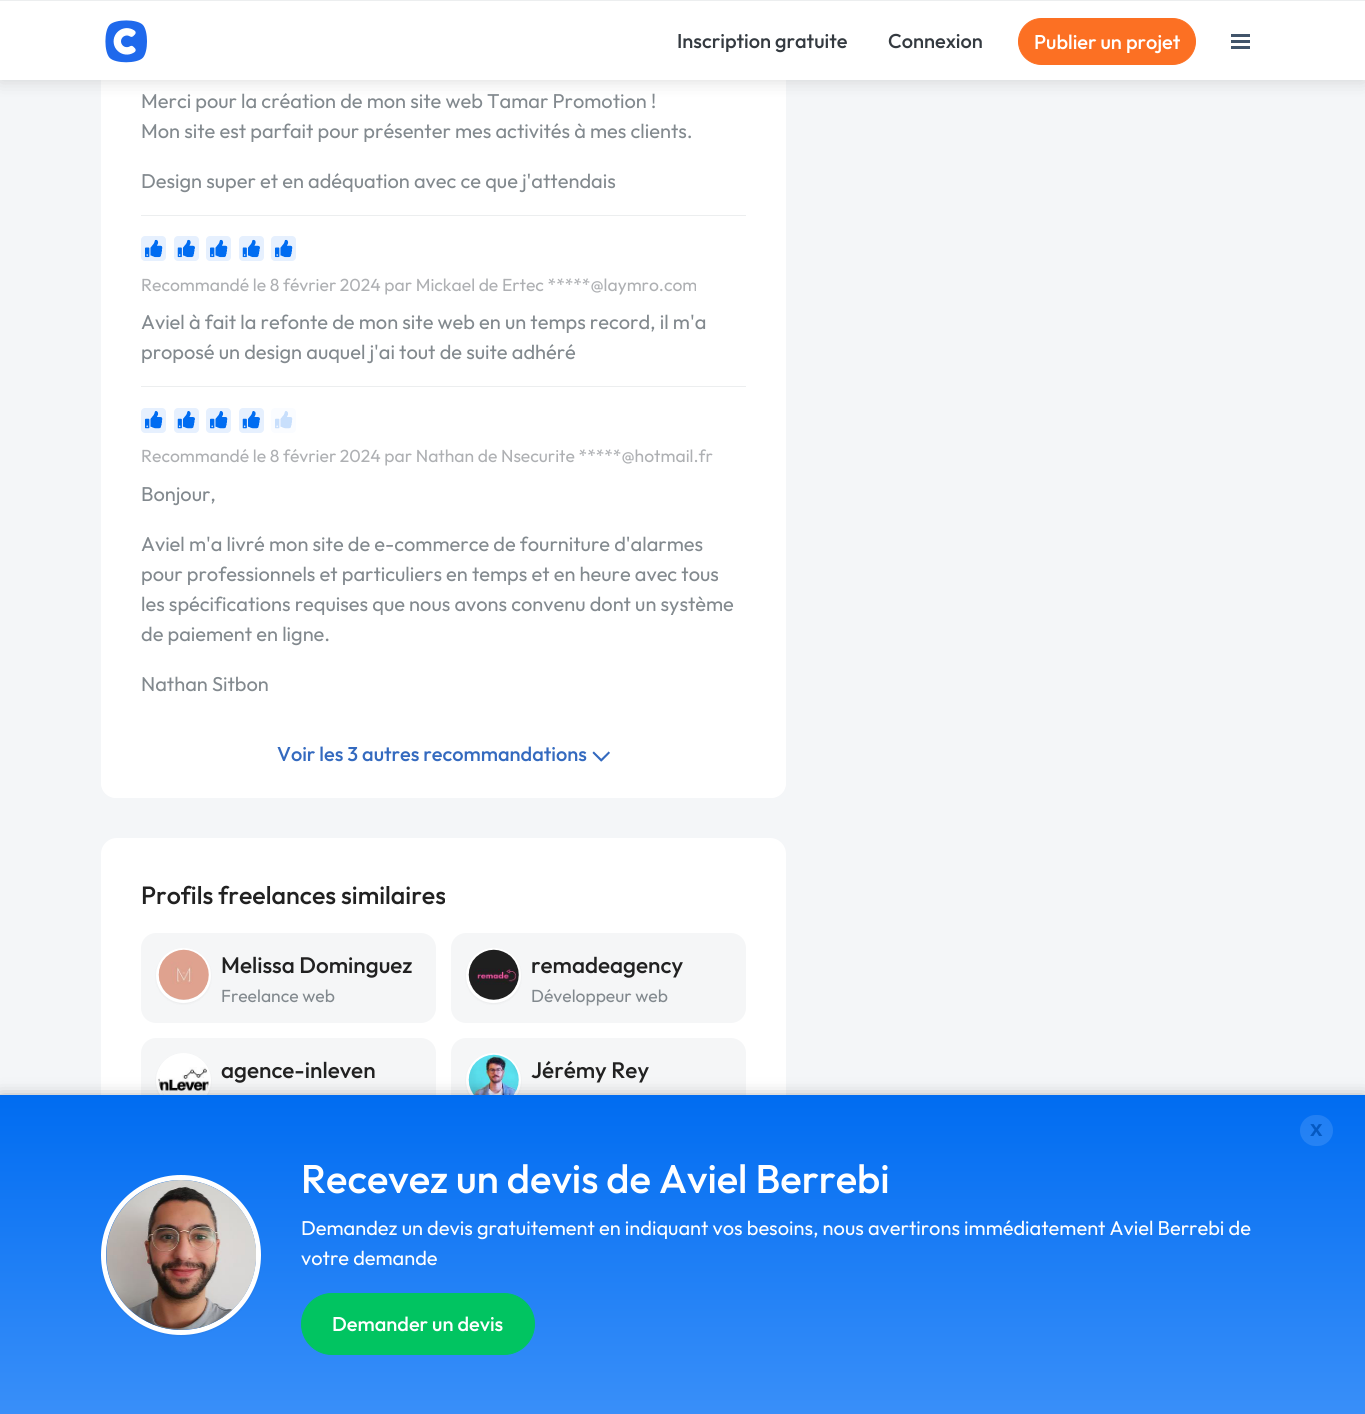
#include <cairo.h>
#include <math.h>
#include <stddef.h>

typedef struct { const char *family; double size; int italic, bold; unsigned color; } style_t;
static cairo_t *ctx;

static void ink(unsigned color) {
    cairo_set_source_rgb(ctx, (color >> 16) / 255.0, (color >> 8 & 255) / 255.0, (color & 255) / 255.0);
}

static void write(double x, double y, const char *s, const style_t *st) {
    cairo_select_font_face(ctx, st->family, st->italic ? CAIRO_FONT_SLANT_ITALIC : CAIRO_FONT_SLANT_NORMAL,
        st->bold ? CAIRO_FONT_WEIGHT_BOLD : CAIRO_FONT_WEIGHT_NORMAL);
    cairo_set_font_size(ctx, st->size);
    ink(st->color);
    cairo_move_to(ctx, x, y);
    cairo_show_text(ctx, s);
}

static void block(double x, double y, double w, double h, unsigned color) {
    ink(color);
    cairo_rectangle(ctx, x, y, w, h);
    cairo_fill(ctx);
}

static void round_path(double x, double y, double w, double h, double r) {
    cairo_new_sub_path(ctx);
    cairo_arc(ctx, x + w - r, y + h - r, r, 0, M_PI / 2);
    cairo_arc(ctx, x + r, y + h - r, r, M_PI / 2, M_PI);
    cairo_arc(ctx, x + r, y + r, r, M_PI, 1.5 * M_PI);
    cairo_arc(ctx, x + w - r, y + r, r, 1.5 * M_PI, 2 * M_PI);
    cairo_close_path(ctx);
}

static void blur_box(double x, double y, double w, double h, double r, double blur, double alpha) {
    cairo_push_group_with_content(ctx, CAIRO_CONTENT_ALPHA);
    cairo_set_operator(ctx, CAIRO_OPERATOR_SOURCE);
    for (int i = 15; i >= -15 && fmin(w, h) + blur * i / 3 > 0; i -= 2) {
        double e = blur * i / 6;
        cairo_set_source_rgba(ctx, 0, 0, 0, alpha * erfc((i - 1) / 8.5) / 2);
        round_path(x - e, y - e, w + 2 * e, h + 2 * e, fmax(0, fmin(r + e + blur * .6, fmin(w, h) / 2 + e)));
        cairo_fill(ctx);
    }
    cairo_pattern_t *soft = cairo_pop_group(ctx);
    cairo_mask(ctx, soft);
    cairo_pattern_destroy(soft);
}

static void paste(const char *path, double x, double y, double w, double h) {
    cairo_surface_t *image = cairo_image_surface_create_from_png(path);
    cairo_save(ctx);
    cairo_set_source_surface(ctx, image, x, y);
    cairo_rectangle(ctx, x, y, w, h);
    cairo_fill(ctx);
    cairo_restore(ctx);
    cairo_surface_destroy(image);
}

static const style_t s1 = {"Outfit Medium", 20, 0, 0, 0x343a40};
static const style_t s2 = {"Outfit Medium", 20, 0, 0, 0xffffff};
static const style_t s3 = {"Outfit", 20, 0, 0, 0x82898e};
static const style_t s4 = {"Outfit", 17.5, 0, 0, 0xaeb0b3};
static const style_t s5 = {"Outfit Medium", 20, 0, 0, 0x346abf};
static const style_t s6 = {"Outfit Medium", 25, 0, 0, 0x212121};
static const style_t s7 = {"Outfit Medium", 22.5, 0, 0, 0x212121};
static const style_t s8 = {"Outfit", 17.5, 0, 0, 0x82898e};
static const style_t s9 = {"Liberation Sans", 22.5, 0, 1, 0x0559c2};
static const style_t s10 = {"Outfit Medium", 40, 0, 0, 0xffffff};
static const style_t s11 = {"Outfit", 20, 0, 0, 0xffffff};

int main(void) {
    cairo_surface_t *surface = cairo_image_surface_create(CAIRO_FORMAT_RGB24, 1365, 1414);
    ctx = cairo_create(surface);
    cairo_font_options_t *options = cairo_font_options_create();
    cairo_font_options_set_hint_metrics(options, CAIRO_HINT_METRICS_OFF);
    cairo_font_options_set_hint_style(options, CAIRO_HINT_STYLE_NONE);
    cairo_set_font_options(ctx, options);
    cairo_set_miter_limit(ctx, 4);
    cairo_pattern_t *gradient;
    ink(0xf4f6f8);
    cairo_paint(ctx);
    ink(0xffffff);
    round_path(101, -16, 685, 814, 16);
    cairo_fill(ctx);
    ink(0x000000);
    blur_box(0, 0, 1365, 80, 0, 9.5, 0.15);
    block(0, 1, 1365, 79, 0xffffff);
    block(0, 0, 1365, 1, 0xeceeef);
    paste("pic1.png", 105, 20, 42, 43);
    write(677, 48, "Inscription gratuite", &s1);
    write(888, 48, "Connexion", &s1);
    ink(0xfc7023);
    round_path(1018.5, 18.5, 177, 46, 23);
    cairo_fill_preserve(ctx);
    cairo_set_line_width(ctx, 1);
    cairo_stroke(ctx);
    write(1034, 49, "Publier un projet", &s2);
    block(1231, 34, 19, 3, 0x41546a);
    block(1231, 40, 19, 3, 0x41546a);
    block(1231, 46, 19, 3, 0x41546a);
    block(141, 215, 605, 1, 0xeceeef);
    write(141, 108, "Merci pour la création de mon site web Tamar Promotion !", &s3);
    write(141, 138, "Mon site est parfait pour présenter mes activités à mes clients.", &s3);
    write(141, 188, "Design super et en adéquation avec ce que j'attendais", &s3);
    block(141, 386, 605, 1, 0xeceeef);
    ink(0xe6f0fe);
    round_path(141, 236, 25, 25, 4);
    cairo_fill(ctx);
    paste("pic2.png", 145, 239, 18, 19);
    round_path(174, 236, 25, 25, 4);
    cairo_fill(ctx);
    paste("pic3.png", 177, 239, 18, 19);
    round_path(206, 236, 25, 25, 4);
    cairo_fill(ctx);
    paste("pic2.png", 210, 239, 18, 19);
    round_path(239, 236, 25, 25, 4);
    cairo_fill(ctx);
    paste("pic4.png", 242, 239, 18, 19);
    round_path(271, 236, 25, 25, 4);
    cairo_fill(ctx);
    paste("pic2.png", 275, 239, 18, 19);
    write(141, 291, "Recommandé le 8 février 2024 par Mickael de Ertec *****@laymro.com", &s4);
    write(141, 329, "Aviel à fait la refonte de mon site web en un temps record, il m'a", &s3);
    write(141, 359, "proposé un design auquel j'ai tout de suite adhéré", &s3);
    ink(0xe6f0fe);
    round_path(141, 408, 25, 25, 4);
    cairo_fill(ctx);
    paste("pic5.png", 145, 411, 18, 18);
    round_path(174, 408, 25, 25, 4);
    cairo_fill(ctx);
    paste("pic6.png", 177, 411, 18, 18);
    round_path(206, 408, 25, 25, 4);
    cairo_fill(ctx);
    paste("pic5.png", 210, 411, 18, 18);
    round_path(239, 408, 25, 25, 4);
    cairo_fill(ctx);
    paste("pic7.png", 242, 411, 18, 18);
    ink(0xfafcff);
    round_path(271, 408, 25, 25, 4);
    cairo_fill(ctx);
    paste("pic8.png", 275, 411, 18, 18);
    write(141, 462, "Recommandé le 8 février 2024 par Nathan de Nsecurite *****@hotmail.fr", &s4);
    write(141, 501, "Bonjour,", &s3);
    write(141, 551, "Aviel m'a livré mon site de e-commerce de fourniture d'alarmes", &s3);
    write(141, 581, "pour professionnels et particuliers en temps et en heure avec tous", &s3);
    write(141, 611, "les spécifications requises que nous avons convenu dont un système", &s3);
    write(141, 641, "de paiement en ligne.", &s3);
    write(141, 691, "Nathan Sitbon", &s3);
    ink(0xffffff);
    cairo_new_path(ctx);
    cairo_move_to(ctx, 101, 738);
    cairo_line_to(ctx, 786, 738);
    cairo_line_to(ctx, 786, 783);
    cairo_curve_to(ctx, 786, 791.5, 779.5, 798, 771, 798);
    cairo_line_to(ctx, 116, 798);
    cairo_curve_to(ctx, 107.5, 798, 101, 791.5, 101, 783);
    cairo_close_path(ctx);
    cairo_fill(ctx);
    write(277, 761, "Voir les 3 autres recommandations", &s5);
    paste("pic9.png", 592, 751, 18, 11);
    ink(0xffffff);
    round_path(101, 838, 685, 475, 16);
    cairo_fill(ctx);
    write(141, 904, "Profils freelances similaires", &s6);
    ink(0xf5f6f7);
    round_path(141, 933, 295, 90, 15);
    cairo_fill(ctx);
    ink(0x000000);
    blur_box(156, 949, 55, 55, 27.5, 1, 0.05);
    cairo_arc(ctx, 183.5, 975.5, 26, 0, 2 * M_PI);
    ink(0xffffff);
    cairo_set_line_width(ctx, 3);
    cairo_stroke(ctx);
    paste("pic10.png", 158, 949, 51, 51);
    write(221, 973, "Melissa Dominguez", &s7);
    write(221, 1002, "Freelance web", &s8);
    ink(0xf5f6f7);
    round_path(451, 933, 295, 90, 15);
    cairo_fill(ctx);
    ink(0x000000);
    blur_box(466, 949, 55, 55, 27.5, 1, 0.05);
    cairo_arc(ctx, 493.5, 975.5, 26, 0, 2 * M_PI);
    ink(0xffffff);
    cairo_stroke(ctx);
    paste("pic11.png", 468, 949, 51, 51);
    write(531, 973, "remadeagency", &s7);
    write(531, 1002, "Développeur web", &s8);
    ink(0xf5f6f7);
    round_path(141, 1038, 295, 90, 15);
    cairo_fill(ctx);
    ink(0x000000);
    blur_box(156, 1054, 55, 55, 27.5, 1, 0.05);
    cairo_arc(ctx, 183.5, 1080.5, 26, 0, 2 * M_PI);
    ink(0xffffff);
    cairo_stroke(ctx);
    paste("pic12.png", 158, 1056, 51, 39);
    write(221, 1078, "agence-inleven", &s7);
    ink(0xf5f6f7);
    round_path(451, 1038, 295, 90, 15);
    cairo_fill(ctx);
    ink(0x000000);
    blur_box(466, 1054, 55, 55, 27.5, 1, 0.05);
    cairo_arc(ctx, 493.5, 1080.5, 26, 0, 2 * M_PI);
    ink(0xffffff);
    cairo_stroke(ctx);
    paste("pic13.png", 468, 1054, 51, 41);
    write(531, 1078, "Jérémy Rey", &s7);
    ink(0x000000);
    blur_box(0, 1101, 1365, 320, 0, 9.5, 0.5);
    gradient = cairo_pattern_create_linear(683, 1095, 683, 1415);
    cairo_pattern_add_color_stop_rgba(gradient, 0, 0, 0.424, 0.945, 1);
    cairo_pattern_add_color_stop_rgba(gradient, 1, 0.224, 0.561, 0.976, 1);
    cairo_set_source(ctx, gradient);
    cairo_pattern_destroy(gradient);
    cairo_rectangle(ctx, 0, 1095, 1365, 319);
    cairo_fill(ctx);
    cairo_set_source_rgba(ctx, 1, 1, 1, 0.12);
    round_path(1300, 1115, 33, 31, 15.5);
    cairo_fill(ctx);
    write(1310, 1136, "x", &s9);
    ink(0x000000);
    blur_box(101, 1176, 160, 160, 80, 1, 0.05);
    cairo_arc(ctx, 181, 1255, 77.5, 0, 2 * M_PI);
    ink(0xffffff);
    cairo_set_line_width(ctx, 5);
    cairo_stroke(ctx);
    paste("pic14.png", 106, 1180, 150, 150);
    write(301, 1193, "Recevez un devis de Aviel Berrebi", &s10);
    write(301, 1235, "Demandez un devis gratuitement en indiquant vos besoins, nous avertirons immédiatement Aviel Berrebi de", &s11);
    write(301, 1265, "votre demande", &s11);
    ink(0x01c461);
    round_path(301.5, 1293.5, 233, 61, 30.5);
    cairo_fill_preserve(ctx);
    cairo_set_line_width(ctx, 1);
    cairo_stroke(ctx);
    write(332, 1331, "Demander un devis", &s2);
    cairo_surface_write_to_png(surface, "screenshot.png");
    cairo_font_options_destroy(options);
    cairo_destroy(ctx);
    cairo_surface_destroy(surface);
    return 0;
}
